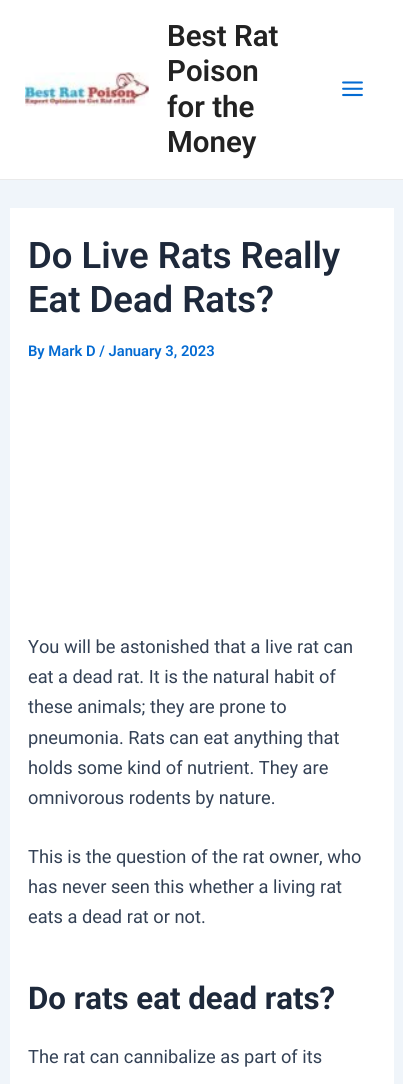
#include <cairo.h>
#include <math.h>
#include <stddef.h>

typedef struct { const char *family; double size; int italic, bold; unsigned color; } style_t;
static cairo_t *ctx;

static void ink(unsigned color) {
    cairo_set_source_rgb(ctx, (color >> 16) / 255.0, (color >> 8 & 255) / 255.0, (color & 255) / 255.0);
}

static void write(double x, double y, const char *s, const style_t *st) {
    cairo_select_font_face(ctx, st->family, st->italic ? CAIRO_FONT_SLANT_ITALIC : CAIRO_FONT_SLANT_NORMAL,
        st->bold ? CAIRO_FONT_WEIGHT_BOLD : CAIRO_FONT_WEIGHT_NORMAL);
    cairo_set_font_size(ctx, st->size);
    ink(st->color);
    cairo_move_to(ctx, x, y);
    cairo_show_text(ctx, s);
}

static void block(double x, double y, double w, double h, unsigned color) {
    ink(color);
    cairo_rectangle(ctx, x, y, w, h);
    cairo_fill(ctx);
}

static void paste(const char *path, double x, double y, double w, double h) {
    cairo_surface_t *image = cairo_image_surface_create_from_png(path);
    cairo_save(ctx);
    cairo_set_source_surface(ctx, image, x, y);
    cairo_rectangle(ctx, x, y, w, h);
    cairo_fill(ctx);
    cairo_restore(ctx);
    cairo_surface_destroy(image);
}

static const style_t s1 = {"Roboto SemiBold", 29.5, 0, 0, 0x222222};
static const style_t s2 = {"Roboto SemiBold", 36.5, 0, 0, 0x1e293b};
static const style_t s3 = {"Roboto SemiBold", 14.75, 0, 0, 0x046bd2};
static const style_t s4 = {"Roboto", 18.25, 0, 0, 0x334155};
static const style_t s5 = {"Roboto", 31.25, 0, 1, 0x1e293b};

int main(void) {
    cairo_surface_t *surface = cairo_image_surface_create(CAIRO_FORMAT_RGB24, 403, 1084);
    ctx = cairo_create(surface);
    cairo_font_options_t *options = cairo_font_options_create();
    cairo_font_options_set_hint_metrics(options, CAIRO_HINT_METRICS_OFF);
    cairo_font_options_set_hint_style(options, CAIRO_HINT_STYLE_NONE);
    cairo_set_font_options(ctx, options);
    cairo_set_miter_limit(ctx, 4);
    ink(0xf0f5fa);
    cairo_paint(ctx);
    block(0, 0, 403, 179, 0xffffff);
    block(0, 179, 403, 1, 0xeaeaea);
    paste("pic1.png", 25, 72, 124, 35);
    write(167, 46, "Best Rat", &s1);
    write(167, 81, "Poison", &s1);
    write(167, 117, "for the", &s1);
    write(167, 152, "Money", &s1);
    paste("pic2.png", 342, 81, 21, 16);
    block(10, 208, 384, 876, 0xffffff);
    write(28, 268, "Do Live Rats Really", &s2);
    write(28, 312, "Eat Dead Rats?", &s2);
    write(28, 356, "By Mark D / January 3, 2023", &s3);
    write(28, 653, "You will be astonished that a live rat can", &s4);
    write(28, 683, "eat a dead rat. It is the natural habit of", &s4);
    write(28, 713, "these animals; they are prone to", &s4);
    write(28, 744, "pneumonia. Rats can eat anything that", &s4);
    write(28, 774, "holds some kind of nutrient. They are", &s4);
    write(28, 804, "omnivorous rodents by nature.", &s4);
    write(28, 863, "This is the question of the rat owner, who", &s4);
    write(28, 893, "has never seen this whether a living rat", &s4);
    write(28, 923, "eats a dead rat or not.", &s4);
    write(28, 1009, "Do rats eat dead rats?", &s5);
    write(28, 1063, "The rat can cannibalize as part of its", &s4);
    cairo_surface_write_to_png(surface, "screenshot.png");
    cairo_font_options_destroy(options);
    cairo_destroy(ctx);
    cairo_surface_destroy(surface);
    return 0;
}
